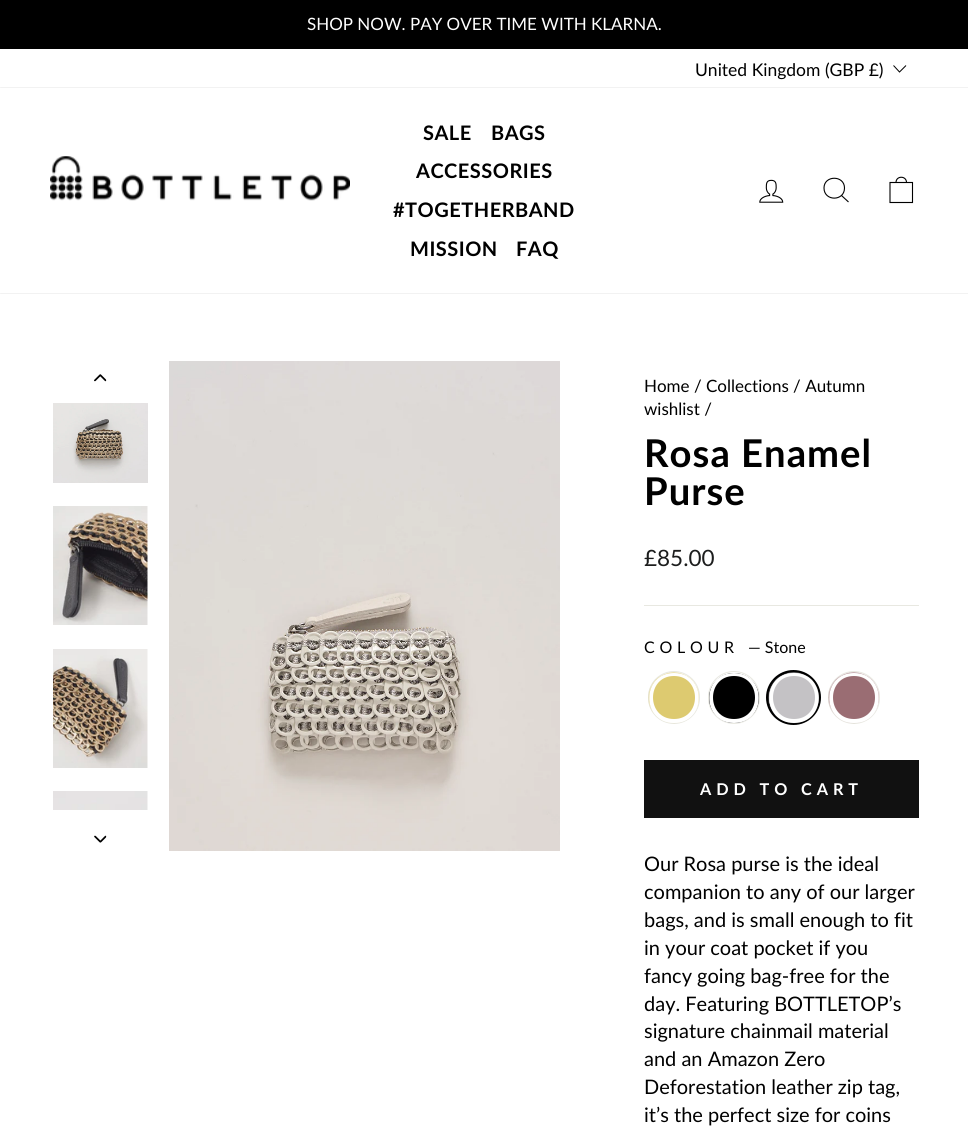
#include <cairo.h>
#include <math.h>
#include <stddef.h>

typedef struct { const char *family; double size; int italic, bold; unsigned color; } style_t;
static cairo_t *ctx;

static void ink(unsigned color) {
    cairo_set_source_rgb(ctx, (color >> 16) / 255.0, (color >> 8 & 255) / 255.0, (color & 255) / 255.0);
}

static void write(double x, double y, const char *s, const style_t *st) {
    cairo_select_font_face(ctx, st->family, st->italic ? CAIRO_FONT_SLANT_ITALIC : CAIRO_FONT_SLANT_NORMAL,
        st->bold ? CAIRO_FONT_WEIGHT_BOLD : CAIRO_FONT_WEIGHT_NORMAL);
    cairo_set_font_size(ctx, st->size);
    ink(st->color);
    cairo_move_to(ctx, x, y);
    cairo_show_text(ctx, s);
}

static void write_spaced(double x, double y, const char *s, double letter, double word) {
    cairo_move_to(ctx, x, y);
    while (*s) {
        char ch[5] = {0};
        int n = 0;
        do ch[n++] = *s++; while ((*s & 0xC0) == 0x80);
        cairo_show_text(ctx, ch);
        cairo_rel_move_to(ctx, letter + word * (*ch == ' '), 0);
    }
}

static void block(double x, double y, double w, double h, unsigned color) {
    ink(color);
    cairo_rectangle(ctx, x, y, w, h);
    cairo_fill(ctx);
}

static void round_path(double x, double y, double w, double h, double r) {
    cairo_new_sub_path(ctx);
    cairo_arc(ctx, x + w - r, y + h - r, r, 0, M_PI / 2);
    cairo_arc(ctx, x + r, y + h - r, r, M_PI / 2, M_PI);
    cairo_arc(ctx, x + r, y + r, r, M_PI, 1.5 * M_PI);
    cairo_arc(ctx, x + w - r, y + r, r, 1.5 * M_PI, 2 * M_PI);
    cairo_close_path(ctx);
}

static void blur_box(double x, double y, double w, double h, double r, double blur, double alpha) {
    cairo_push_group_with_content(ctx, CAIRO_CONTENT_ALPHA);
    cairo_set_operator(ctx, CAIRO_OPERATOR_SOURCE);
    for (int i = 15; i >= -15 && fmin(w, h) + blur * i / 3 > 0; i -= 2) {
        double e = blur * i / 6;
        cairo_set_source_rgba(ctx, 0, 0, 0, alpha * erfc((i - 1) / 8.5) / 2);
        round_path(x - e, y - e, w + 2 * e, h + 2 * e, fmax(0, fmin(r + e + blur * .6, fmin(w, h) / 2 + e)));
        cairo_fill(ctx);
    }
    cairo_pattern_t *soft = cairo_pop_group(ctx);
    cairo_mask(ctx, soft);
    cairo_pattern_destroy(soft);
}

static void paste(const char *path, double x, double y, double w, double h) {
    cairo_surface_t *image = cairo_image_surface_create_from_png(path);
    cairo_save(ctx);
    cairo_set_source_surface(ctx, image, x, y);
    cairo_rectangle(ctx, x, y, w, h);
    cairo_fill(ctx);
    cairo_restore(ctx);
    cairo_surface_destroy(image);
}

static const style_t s1 = {"Lato", 17, 0, 0, 0xffffff};
static const style_t s2 = {"Lato", 17.5, 0, 0, 0x000000};
static const style_t s3 = {"Lato", 17, 0, 0, 0x000000};
static const style_t s4 = {"Lato", 22.5, 0, 0, 0x1c1d1d};
static const style_t s5 = {"Lato", 16, 0, 0, 0x000000};
static const style_t s6 = {"Lato", 20, 0, 0, 0x000000};

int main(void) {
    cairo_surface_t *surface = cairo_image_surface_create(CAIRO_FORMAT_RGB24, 968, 1143);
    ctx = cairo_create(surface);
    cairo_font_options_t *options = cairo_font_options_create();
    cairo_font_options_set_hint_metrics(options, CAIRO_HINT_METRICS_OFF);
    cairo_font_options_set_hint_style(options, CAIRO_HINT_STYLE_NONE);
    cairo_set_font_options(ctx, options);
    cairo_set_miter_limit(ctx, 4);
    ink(0xffffff);
    cairo_paint(ctx);
    block(0, 0, 968, 49, 0x000000);
    write(307, 30, "SHOP NOW. PAY OVER TIME WITH KLARNA.", &s1);
    write(695, 76, "United Kingdom (GBP £)", &s2);
    cairo_new_path(ctx);
    cairo_move_to(ctx, 893.5, 65.5);
    cairo_line_to(ctx, 899.5, 72);
    cairo_line_to(ctx, 906, 65.5);
    cairo_set_line_width(ctx, 1);
    cairo_stroke(ctx);
    ink(0x000000);
    blur_box(0, 88, 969, 205, 0, 0.5, 0.2);
    block(0, 88, 968, 205, 0xffffff);
    paste("pic1.png", 50, 156, 300, 45);
    cairo_select_font_face(ctx, "Lato", CAIRO_FONT_SLANT_NORMAL, CAIRO_FONT_WEIGHT_BOLD);
    cairo_set_font_size(ctx, 20);
    ink(0x000000);
    write_spaced(423, 140, "SALE", 0.5, 0);
    write_spaced(491, 140, "BAGS", 0.5, 0);
    write_spaced(416, 178, "ACCESSORIES", 0.5, 0);
    write_spaced(393, 217, "#TOGETHERBAND", 0.5, 0);
    write_spaced(410, 256, "MISSION", 0.5, 0);
    write_spaced(516, 256, "FAQ", 0.5, 0);
    paste("pic2.png", 759, 179, 25, 24);
    cairo_new_path(ctx);
    cairo_move_to(ctx, 844.5, 188);
    cairo_curve_to(ctx, 844.5, 201.5, 824, 201.5, 824, 188);
    cairo_curve_to(ctx, 824, 175, 844.5, 175, 844.5, 188);
    cairo_close_path(ctx);
    cairo_move_to(ctx, 848.5, 202);
    cairo_line_to(ctx, 841.5, 195.5);
    cairo_set_line_width(ctx, 1.1);
    cairo_stroke(ctx);
    cairo_new_path(ctx);
    cairo_move_to(ctx, 890, 182.5);
    cairo_line_to(ctx, 912.5, 182.5);
    cairo_line_to(ctx, 912.5, 202.5);
    cairo_line_to(ctx, 890, 202.5);
    cairo_close_path(ctx);
    cairo_move_to(ctx, 896, 182.5);
    cairo_curve_to(ctx, 896, 175.5, 906.5, 175.5, 906.5, 182.5);
    cairo_stroke(ctx);
    paste("pic3.png", 94, 374, 13, 8);
    paste("pic4.png", 53, 403, 95, 80);
    paste("pic5.png", 53, 506, 95, 119);
    paste("pic6.png", 53, 649, 95, 119);
    paste("pic7.png", 53, 791, 95, 19);
    paste("pic8.png", 94, 835, 13, 8);
    paste("pic9.png", 169, 361, 391, 490);
    write(644, 392, "Home / Collections / Autumn", &s3);
    write(644, 415, "wishlist /", &s3);
    cairo_select_font_face(ctx, "Lato", CAIRO_FONT_SLANT_NORMAL, CAIRO_FONT_WEIGHT_BOLD);
    cairo_set_font_size(ctx, 38.25);
    write_spaced(644, 467, "Rosa Enamel", 1, 0);
    write_spaced(644, 505, "Purse", 1, 0);
    write(644, 566, "£85.00", &s4);
    block(644, 605, 275, 1, 0xe8e8e1);
    cairo_set_font_size(ctx, 16);
    ink(0x000000);
    write_spaced(644, 653, "COLOUR", 4.75, 0);
    write(748, 653, "— Stone", &s5);
    round_path(648.5, 671.5, 51, 52, 25.5);
    ink(0xe8e8e1);
    cairo_set_line_width(ctx, 1);
    cairo_stroke(ctx);
    paste("pic10.png", 648, 672, 51, 52);
    ink(0xffffff);
    cairo_set_fill_rule(ctx, CAIRO_FILL_RULE_EVEN_ODD);
    cairo_new_path(ctx);
    cairo_move_to(ctx, 674, 673);
    cairo_curve_to(ctx, 641, 673, 641, 723, 674, 723);
    cairo_curve_to(ctx, 707, 723, 707, 673, 674, 673);
    cairo_close_path(ctx);
    cairo_move_to(ctx, 674, 676);
    cairo_curve_to(ctx, 646, 676, 646, 719, 674, 719);
    cairo_curve_to(ctx, 702, 719, 702, 676, 674, 676);
    cairo_close_path(ctx);
    cairo_fill(ctx);
    round_path(708.5, 671.5, 51, 52, 25.5);
    ink(0xe8e8e1);
    cairo_stroke(ctx);
    ink(0x000000);
    cairo_arc(ctx, 734, 698, 25, 0, 2 * M_PI);
    cairo_fill(ctx);
    ink(0xffffff);
    cairo_new_path(ctx);
    cairo_move_to(ctx, 734, 673);
    cairo_curve_to(ctx, 701, 673, 701, 723, 734, 723);
    cairo_curve_to(ctx, 767, 723, 767, 673, 734, 673);
    cairo_close_path(ctx);
    cairo_move_to(ctx, 734, 676);
    cairo_curve_to(ctx, 706, 676, 706, 719, 734, 719);
    cairo_curve_to(ctx, 762, 719, 762, 676, 734, 676);
    cairo_close_path(ctx);
    cairo_fill(ctx);
    cairo_arc(ctx, 793.5, 697.5, 26, 0, 2 * M_PI);
    ink(0x000000);
    cairo_set_line_width(ctx, 3);
    cairo_stroke(ctx);
    paste("pic11.png", 768, 672, 51, 52);
    ink(0xffffff);
    cairo_new_path(ctx);
    cairo_move_to(ctx, 794, 673);
    cairo_curve_to(ctx, 761, 673, 761, 723, 794, 723);
    cairo_curve_to(ctx, 827, 723, 827, 673, 794, 673);
    cairo_close_path(ctx);
    cairo_move_to(ctx, 794, 676);
    cairo_curve_to(ctx, 766, 676, 766, 719, 794, 719);
    cairo_curve_to(ctx, 822, 719, 822, 676, 794, 676);
    cairo_close_path(ctx);
    cairo_fill(ctx);
    round_path(828.5, 671.5, 51, 52, 25.5);
    ink(0xe8e8e1);
    cairo_set_line_width(ctx, 1);
    cairo_stroke(ctx);
    paste("pic12.png", 828, 672, 51, 52);
    ink(0xffffff);
    cairo_new_path(ctx);
    cairo_move_to(ctx, 854, 673);
    cairo_curve_to(ctx, 821, 673, 821, 723, 854, 723);
    cairo_curve_to(ctx, 887, 723, 887, 673, 854, 673);
    cairo_close_path(ctx);
    cairo_move_to(ctx, 854, 676);
    cairo_curve_to(ctx, 826, 676, 826, 719, 854, 719);
    cairo_curve_to(ctx, 882, 719, 882, 676, 854, 676);
    cairo_close_path(ctx);
    cairo_fill(ctx);
    block(644, 760, 275, 58, 0x111111);
    cairo_select_font_face(ctx, "Lato", CAIRO_FONT_SLANT_NORMAL, CAIRO_FONT_WEIGHT_BOLD);
    cairo_set_font_size(ctx, 16.25);
    ink(0xffffff);
    write_spaced(700, 795, "ADD TO CART", 4.9, 0);
    write(644, 871, "Our Rosa purse is the ideal", &s6);
    write(644, 899, "companion to any of our larger", &s6);
    write(644, 927, "bags, and is small enough to fit", &s6);
    write(644, 955, "in your coat pocket if you", &s6);
    write(644, 983, "fancy going bag-free for the", &s6);
    write(644, 1011, "day. Featuring BOTTLETOP’s", &s6);
    write(644, 1038, "signature chainmail material", &s6);
    write(644, 1066, "and an Amazon Zero", &s6);
    write(644, 1094, "Deforestation leather zip tag,", &s6);
    write(644, 1122, "it’s the perfect size for coins", &s6);
    cairo_surface_write_to_png(surface, "screenshot.png");
    cairo_font_options_destroy(options);
    cairo_destroy(ctx);
    cairo_surface_destroy(surface);
    return 0;
}
